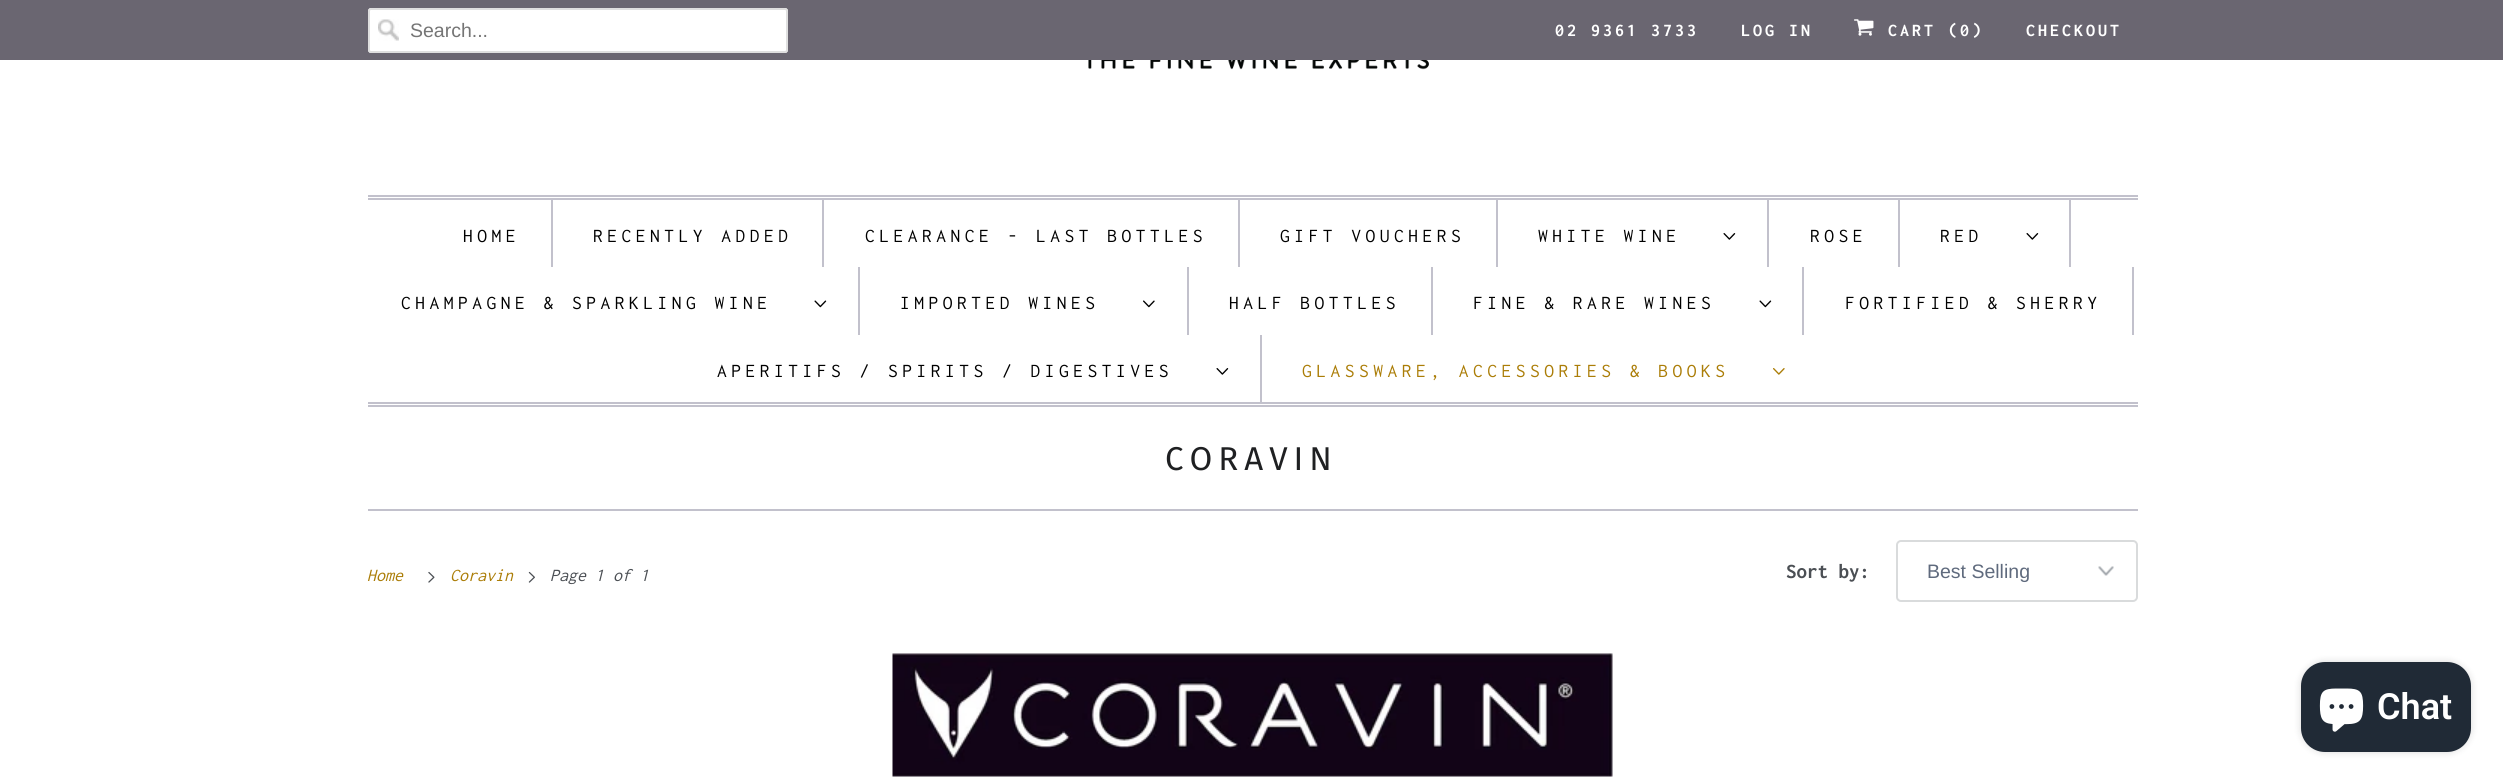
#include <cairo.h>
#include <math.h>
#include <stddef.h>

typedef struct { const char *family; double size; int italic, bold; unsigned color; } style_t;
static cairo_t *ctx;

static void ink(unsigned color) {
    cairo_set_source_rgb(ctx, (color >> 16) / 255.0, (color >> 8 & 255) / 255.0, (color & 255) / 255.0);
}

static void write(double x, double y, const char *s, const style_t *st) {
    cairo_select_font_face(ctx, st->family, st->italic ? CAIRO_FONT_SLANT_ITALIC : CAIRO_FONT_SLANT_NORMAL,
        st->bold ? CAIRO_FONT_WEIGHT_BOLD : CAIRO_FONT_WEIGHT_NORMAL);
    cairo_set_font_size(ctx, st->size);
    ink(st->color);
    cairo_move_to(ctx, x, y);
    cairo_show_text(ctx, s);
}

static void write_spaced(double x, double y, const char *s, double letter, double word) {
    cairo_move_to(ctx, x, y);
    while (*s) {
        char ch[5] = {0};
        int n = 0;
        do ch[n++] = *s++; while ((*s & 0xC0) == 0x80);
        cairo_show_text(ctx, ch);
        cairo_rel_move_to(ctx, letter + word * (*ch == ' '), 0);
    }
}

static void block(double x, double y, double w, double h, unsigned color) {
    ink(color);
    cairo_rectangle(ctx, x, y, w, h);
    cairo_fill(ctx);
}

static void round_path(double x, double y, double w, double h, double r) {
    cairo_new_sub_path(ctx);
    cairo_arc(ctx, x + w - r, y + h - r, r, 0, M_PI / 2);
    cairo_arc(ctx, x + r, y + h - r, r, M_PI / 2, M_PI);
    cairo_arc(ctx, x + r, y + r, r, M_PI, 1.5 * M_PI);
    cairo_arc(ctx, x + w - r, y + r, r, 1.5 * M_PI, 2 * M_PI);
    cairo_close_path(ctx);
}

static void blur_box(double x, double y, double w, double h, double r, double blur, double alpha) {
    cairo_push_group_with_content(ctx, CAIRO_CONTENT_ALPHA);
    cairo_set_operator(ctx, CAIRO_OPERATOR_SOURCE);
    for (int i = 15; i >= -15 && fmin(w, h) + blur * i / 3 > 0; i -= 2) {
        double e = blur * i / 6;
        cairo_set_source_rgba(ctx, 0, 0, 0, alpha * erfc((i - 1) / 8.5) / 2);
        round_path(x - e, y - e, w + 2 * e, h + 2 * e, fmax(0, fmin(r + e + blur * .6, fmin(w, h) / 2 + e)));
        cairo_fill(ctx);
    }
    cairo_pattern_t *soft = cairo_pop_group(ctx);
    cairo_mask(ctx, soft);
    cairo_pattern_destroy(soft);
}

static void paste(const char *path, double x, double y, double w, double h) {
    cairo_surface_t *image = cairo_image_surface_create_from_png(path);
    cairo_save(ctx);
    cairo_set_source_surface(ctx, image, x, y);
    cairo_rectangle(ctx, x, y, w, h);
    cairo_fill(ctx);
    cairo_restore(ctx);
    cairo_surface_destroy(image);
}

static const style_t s1 = {"Liberation Sans", 19.5, 0, 0, 0x757575};
static const style_t s2 = {"Inconsolata", 18, 1, 0, 0xab7d07};
static const style_t s3 = {"Inconsolata", 18, 1, 0, 0x4b4f54};
static const style_t s4 = {"Inconsolata", 21, 0, 1, 0x4b4f54};
static const style_t s5 = {"Liberation Sans", 19.5, 0, 0, 0x5f6a7d};
static const style_t s6 = {"Roboto SemiBold", 36, 0, 0, 0xffffff};

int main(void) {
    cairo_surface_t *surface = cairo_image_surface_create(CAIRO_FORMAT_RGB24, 2503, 783);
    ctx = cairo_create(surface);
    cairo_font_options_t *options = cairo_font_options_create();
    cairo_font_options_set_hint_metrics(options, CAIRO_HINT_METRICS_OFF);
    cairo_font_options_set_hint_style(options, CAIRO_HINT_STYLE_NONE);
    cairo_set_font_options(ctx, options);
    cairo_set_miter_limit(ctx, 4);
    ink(0xffffff);
    cairo_paint(ctx);
    block(0, 0, 2503, 60, 0x6a6671);
    ink(0xffffff);
    round_path(368, 8, 420, 45, 3);
    cairo_fill(ctx);
    paste("pic1.png", 378, 19, 21, 22);
    round_path(369, 9, 418, 43, 2);
    ink(0xdfdfdf);
    cairo_stroke(ctx);
    write(410, 37, "Search...", &s1);
    cairo_select_font_face(ctx, "Inconsolata", CAIRO_FONT_SLANT_NORMAL, CAIRO_FONT_WEIGHT_BOLD);
    cairo_set_font_size(ctx, 18);
    ink(0xffffff);
    write_spaced(1555, 36, "02 9361 3733", 3, 0);
    write_spaced(1741, 36, "LOG IN", 3, 0);
    paste("pic2.png", 1854, 19, 20, 17);
    write_spaced(1888, 36, "CART (0)", 3, 0);
    write_spaced(2026, 36, "CHECKOUT", 3, 0);
    paste("pic3.png", 1088, 60, 341, 10);
    block(368, 195, 1770, 2, 0xc2c1cc);
    block(368, 198, 1770, 2, 0xc2c1cc);
    block(368, 402, 1770, 2, 0xc2c1cc);
    block(368, 405, 1770, 2, 0xc2c1cc);
    block(551, 200, 2, 67, 0xc2c1cc);
    cairo_select_font_face(ctx, "Inconsolata", CAIRO_FONT_SLANT_NORMAL, CAIRO_FONT_WEIGHT_NORMAL);
    cairo_set_font_size(ctx, 19.5);
    ink(0x000000);
    write_spaced(463, 242, "HOME", 4.5, 0);
    block(822, 200, 2, 67, 0xc2c1cc);
    ink(0x000000);
    write_spaced(593, 242, "RECENTLY ADDED", 4.5, 0);
    block(1238, 200, 2, 67, 0xc2c1cc);
    ink(0x000000);
    write_spaced(865, 242, "CLEARANCE - LAST BOTTLES", 4.5, 0);
    block(1496, 200, 2, 67, 0xc2c1cc);
    ink(0x000000);
    write_spaced(1280, 242, "GIFT VOUCHERS", 4.5, 0);
    block(1767, 200, 2, 67, 0xc2c1cc);
    ink(0x000000);
    write_spaced(1538, 242, "WHITE WINE", 4.5, 0);
    paste("pic4.png", 1723, 233, 13, 7);
    block(1898, 200, 2, 67, 0xc2c1cc);
    ink(0x000000);
    write_spaced(1810, 242, "ROSE", 4.5, 0);
    block(2069, 200, 2, 67, 0xc2c1cc);
    ink(0x000000);
    write_spaced(1940, 242, "RED", 4.5, 0);
    paste("pic4.png", 2026, 233, 13, 7);
    block(858, 267, 2, 68, 0xc2c1cc);
    ink(0x000000);
    write_spaced(401, 309, "CHAMPAGNE & SPARKLING WINE", 4.5, 0);
    paste("pic5.png", 814, 300, 13, 8);
    block(1187, 267, 2, 68, 0xc2c1cc);
    ink(0x000000);
    write_spaced(900, 309, "IMPORTED WINES", 4.5, 0);
    paste("pic6.png", 1143, 300, 12, 8);
    block(1431, 267, 2, 68, 0xc2c1cc);
    ink(0x000000);
    write_spaced(1229, 309, "HALF BOTTLES", 4.5, 0);
    block(1802, 267, 2, 68, 0xc2c1cc);
    ink(0x000000);
    write_spaced(1473, 309, "FINE & RARE WINES", 4.5, 0);
    paste("pic5.png", 1759, 300, 13, 8);
    block(2132, 267, 2, 68, 0xc2c1cc);
    ink(0x000000);
    write_spaced(1845, 309, "FORTIFIED & SHERRY", 4.5, 0);
    block(1260, 335, 2, 67, 0xc2c1cc);
    ink(0x000000);
    write_spaced(717, 377, "APERITIFS / SPIRITS / DIGESTIVES", 4.5, 0);
    paste("pic4.png", 1216, 368, 13, 7);
    ink(0xab7d07);
    write_spaced(1302, 377, "GLASSWARE, ACCESSORIES & BOOKS", 4.5, 0);
    paste("pic7.png", 1773, 368, 12, 7);
    block(368, 509, 1770, 2, 0xc2c1cc);
    cairo_select_font_face(ctx, "Fira Sans", CAIRO_FONT_SLANT_NORMAL, CAIRO_FONT_WEIGHT_NORMAL);
    cairo_set_font_size(ctx, 33);
    ink(0x1f2022);
    write_spaced(1165, 470, "CORAVIN", 6, 0);
    write(367, 581, "Home", &s2);
    paste("pic8.png", 428, 571, 7, 12);
    write(450, 581, "Coravin", &s2);
    paste("pic9.png", 528, 571, 7, 12);
    write(550, 581, "Page 1 of 1", &s3);
    write(1786, 578, "Sort by:", &s4);
    paste("pic10.png", 2098, 566, 16, 10);
    round_path(1897, 541, 240, 60, 4);
    ink(0xd9dbdc);
    cairo_stroke(ctx);
    write(1927, 578, "Best Selling", &s5);
    paste("pic11.png", 892, 653, 721, 124);
    ink(0x000000);
    blur_box(2301, 662, 170, 90, 24, 4, 0.15);
    ink(0x202a36);
    round_path(2301, 662, 170, 90, 24);
    cairo_fill(ctx);
    paste("pic12.png", 2319, 688, 45, 44);
    write(2377, 719, "Chat", &s6);
    cairo_surface_write_to_png(surface, "screenshot.png");
    cairo_font_options_destroy(options);
    cairo_destroy(ctx);
    cairo_surface_destroy(surface);
    return 0;
}
